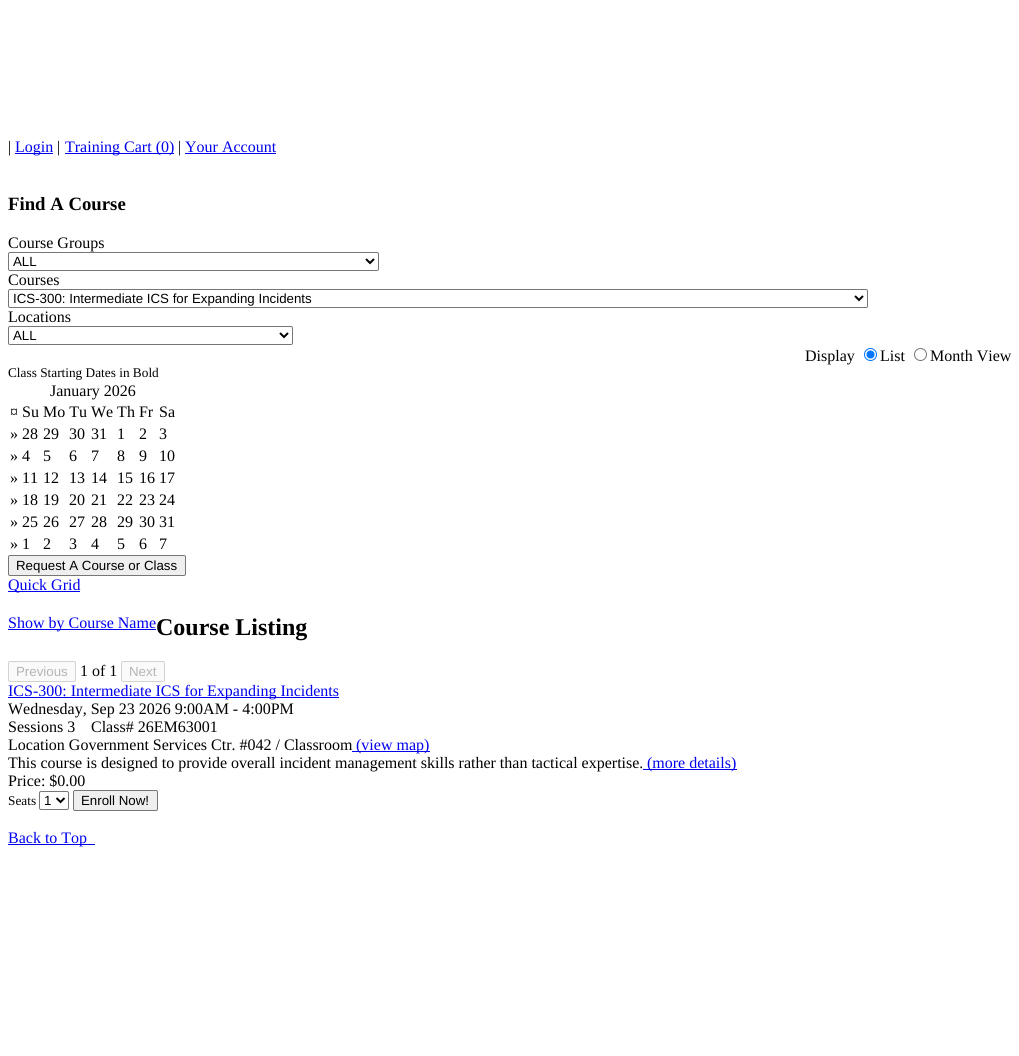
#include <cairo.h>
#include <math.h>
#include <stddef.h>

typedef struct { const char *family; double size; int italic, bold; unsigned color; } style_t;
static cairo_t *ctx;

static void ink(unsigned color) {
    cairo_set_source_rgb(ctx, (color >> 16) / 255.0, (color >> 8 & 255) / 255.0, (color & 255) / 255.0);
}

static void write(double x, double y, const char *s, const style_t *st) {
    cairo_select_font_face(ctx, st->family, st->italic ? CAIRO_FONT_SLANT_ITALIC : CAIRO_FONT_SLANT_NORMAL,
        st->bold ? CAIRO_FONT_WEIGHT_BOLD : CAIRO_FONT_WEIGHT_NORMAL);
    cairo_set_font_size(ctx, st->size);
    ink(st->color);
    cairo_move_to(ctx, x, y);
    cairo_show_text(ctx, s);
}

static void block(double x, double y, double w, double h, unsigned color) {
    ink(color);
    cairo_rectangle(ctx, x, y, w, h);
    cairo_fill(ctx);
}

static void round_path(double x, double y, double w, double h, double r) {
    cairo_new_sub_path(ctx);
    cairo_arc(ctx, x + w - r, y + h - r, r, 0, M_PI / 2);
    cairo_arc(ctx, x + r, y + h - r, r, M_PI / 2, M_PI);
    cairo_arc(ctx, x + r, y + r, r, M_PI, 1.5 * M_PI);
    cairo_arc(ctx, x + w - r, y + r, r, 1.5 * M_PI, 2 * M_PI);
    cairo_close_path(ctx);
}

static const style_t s1 = {"Liberation Serif", 16, 0, 0, 0x000000};
static const style_t s2 = {"Liberation Serif", 16, 0, 0, 0x0000ee};
static const style_t s3 = {"Liberation Serif", 18.75, 0, 1, 0x000000};
static const style_t s4 = {"Liberation Sans", 13.3, 0, 0, 0x000000};
static const style_t s5 = {"Liberation Serif", 13.3, 0, 0, 0x000000};
static const style_t s6 = {"Liberation Serif", 24, 0, 1, 0x000000};
static const style_t s7 = {"Liberation Sans", 13.3, 0, 0, 0xb4b4b4};

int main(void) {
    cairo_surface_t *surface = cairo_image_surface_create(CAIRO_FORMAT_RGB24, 1019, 1056);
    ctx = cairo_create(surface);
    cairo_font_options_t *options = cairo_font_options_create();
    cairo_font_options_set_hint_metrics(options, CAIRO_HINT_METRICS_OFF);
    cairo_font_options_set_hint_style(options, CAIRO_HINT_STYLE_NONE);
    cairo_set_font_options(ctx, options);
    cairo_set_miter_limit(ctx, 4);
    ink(0xffffff);
    cairo_paint(ctx);
    write(8, 152, "|", &s1);
    block(15, 153, 38, 1, 0x0000ee);
    write(15, 152, "Login", &s2);
    write(57, 152, "|", &s1);
    block(65, 153, 109, 1, 0x0000ee);
    write(65, 152, "Training Cart (0)", &s2);
    write(178, 152, "|", &s1);
    write(185, 152, "Your Account", &s2);
    block(185, 153, 91, 1, 0x0000ee);
    write(8, 210, "Find A Course", &s3);
    write(8, 248, "Course Groups", &s1);
    round_path(8.5, 252.5, 370, 18, 1.5);
    ink(0x767676);
    cairo_set_line_width(ctx, 1);
    cairo_stroke(ctx);
    cairo_new_path(ctx);
    cairo_move_to(ctx, 366, 259);
    cairo_line_to(ctx, 370, 263);
    cairo_line_to(ctx, 374, 259);
    ink(0x000000);
    cairo_set_line_width(ctx, 2);
    cairo_stroke(ctx);
    write(13, 266, "ALL", &s4);
    write(8, 285, "Courses", &s1);
    round_path(8.5, 289.5, 859, 18, 1.5);
    ink(0x767676);
    cairo_set_line_width(ctx, 1);
    cairo_stroke(ctx);
    cairo_new_path(ctx);
    cairo_move_to(ctx, 855, 296);
    cairo_line_to(ctx, 859, 300);
    cairo_line_to(ctx, 863, 296);
    ink(0x000000);
    cairo_set_line_width(ctx, 2);
    cairo_stroke(ctx);
    write(13, 303, "ICS-300: Intermediate ICS for Expanding Incidents", &s4);
    write(8, 322, "Locations", &s1);
    round_path(8.5, 326.5, 284, 18, 1.5);
    ink(0x767676);
    cairo_set_line_width(ctx, 1);
    cairo_stroke(ctx);
    cairo_new_path(ctx);
    cairo_move_to(ctx, 280, 333);
    cairo_line_to(ctx, 284, 337);
    cairo_line_to(ctx, 288, 333);
    ink(0x000000);
    cairo_set_line_width(ctx, 2);
    cairo_stroke(ctx);
    write(13, 340, "ALL", &s4);
    write(805, 361, "Display", &s1);
    cairo_new_path(ctx);
    cairo_arc(ctx, 870.5, 354.5, 6, 0, 2 * M_PI);
    ink(0x0075ff);
    cairo_set_line_width(ctx, 1);
    cairo_stroke(ctx);
    cairo_arc(ctx, 870.5, 354.5, 4, 0, 2 * M_PI);
    cairo_fill(ctx);
    write(880, 361, "List", &s1);
    cairo_new_path(ctx);
    cairo_arc(ctx, 920.5, 354.5, 6, 0, 2 * M_PI);
    ink(0x767676);
    cairo_stroke(ctx);
    write(930, 361, "Month View", &s1);
    write(8, 377, "Class Starting Dates in Bold", &s5);
    write(50, 396, "January 2026", &s1);
    write(10, 417, "¤ Su Mo Tu We Th Fr", &s1);
    write(159, 417, "Sa", &s1);
    write(10, 439, "» 28", &s1);
    write(43, 439, "29", &s1);
    write(69, 439, "30", &s1);
    write(91, 439, "31", &s1);
    write(117, 439, "1", &s1);
    write(139, 439, "2", &s1);
    write(159, 439, "3", &s1);
    write(10, 461, "» 4", &s1);
    write(43, 461, "5", &s1);
    write(69, 461, "6", &s1);
    write(91, 461, "7", &s1);
    write(117, 461, "8", &s1);
    write(139, 461, "9", &s1);
    write(159, 461, "10", &s1);
    write(10, 483, "» 11", &s1);
    write(43, 483, "12", &s1);
    write(69, 483, "13", &s1);
    write(91, 483, "14", &s1);
    write(117, 483, "15", &s1);
    write(139, 483, "16 17", &s1);
    write(10, 505, "» 18", &s1);
    write(43, 505, "19", &s1);
    write(69, 505, "20", &s1);
    write(91, 505, "21", &s1);
    write(117, 505, "22", &s1);
    write(139, 505, "23 24", &s1);
    write(10, 527, "» 25", &s1);
    write(43, 527, "26", &s1);
    write(69, 527, "27", &s1);
    write(91, 527, "28", &s1);
    write(117, 527, "29", &s1);
    write(139, 527, "30 31", &s1);
    write(10, 549, "» 1", &s1);
    write(43, 549, "2", &s1);
    write(69, 549, "3", &s1);
    write(91, 549, "4", &s1);
    write(117, 549, "5", &s1);
    write(139, 549, "6", &s1);
    write(159, 549, "7", &s1);
    ink(0xefefef);
    round_path(8.5, 555.5, 177, 20, 1.5);
    cairo_fill_preserve(ctx);
    ink(0x767676);
    cairo_stroke(ctx);
    write(16, 570, "Request A Course or Class", &s4);
    block(8, 591, 72, 1, 0x0000ee);
    write(8, 590, "Quick Grid", &s2);
    block(8, 629, 148, 1, 0x0000ee);
    write(8, 628, "Show by Course Name", &s2);
    write(156, 635, "Course Listing", &s6);
    ink(0xfafafa);
    round_path(8.5, 661.5, 67, 20, 1.5);
    cairo_fill_preserve(ctx);
    ink(0xd2d2d2);
    cairo_stroke(ctx);
    write(16, 676, "Previous", &s7);
    write(80, 676, "1 of 1", &s1);
    ink(0xfafafa);
    round_path(121.5, 661.5, 43, 20, 1.5);
    cairo_fill_preserve(ctx);
    ink(0xd2d2d2);
    cairo_stroke(ctx);
    write(129, 676, "Next", &s7);
    block(8, 697, 331, 1, 0x0000ee);
    write(8, 696, "ICS-300: Intermediate ICS for Expanding Incidents", &s2);
    write(8, 714, "Wednesday, Sep 23 2026 9:00AM - 4:00PM", &s1);
    write(8, 732, "Sessions 3", &s1);
    write(91, 732, "Class# 26EM63001", &s1);
    write(8, 750, "Location Government Services Ctr. #042 / Classroom", &s1);
    block(352, 751, 78, 1, 0x0000ee);
    write(356, 750, "(view map)", &s2);
    write(8, 768, "This course is designed to provide overall incident management skills rather than tactical expertise.", &s1);
    block(643, 769, 94, 1, 0x0000ee);
    write(647, 768, "(more details)", &s2);
    write(8, 786, "Price: $0.00", &s1);
    write(8, 805, "Seats", &s5);
    round_path(39.5, 791.5, 29, 18, 1.5);
    ink(0x767676);
    cairo_stroke(ctx);
    cairo_new_path(ctx);
    cairo_move_to(ctx, 56.5, 798);
    cairo_line_to(ctx, 60.5, 802);
    cairo_line_to(ctx, 64.5, 798);
    ink(0x000000);
    cairo_set_line_width(ctx, 2);
    cairo_stroke(ctx);
    write(44, 805, "1", &s4);
    ink(0xefefef);
    round_path(73.5, 790.5, 84, 20, 1.5);
    cairo_fill_preserve(ctx);
    ink(0x767676);
    cairo_set_line_width(ctx, 1);
    cairo_stroke(ctx);
    write(81, 805, "Enroll Now!", &s4);
    block(8, 844, 87, 1, 0x0000ee);
    write(8, 843, "Back to Top", &s2);
    cairo_surface_write_to_png(surface, "screenshot.png");
    cairo_font_options_destroy(options);
    cairo_destroy(ctx);
    cairo_surface_destroy(surface);
    return 0;
}
